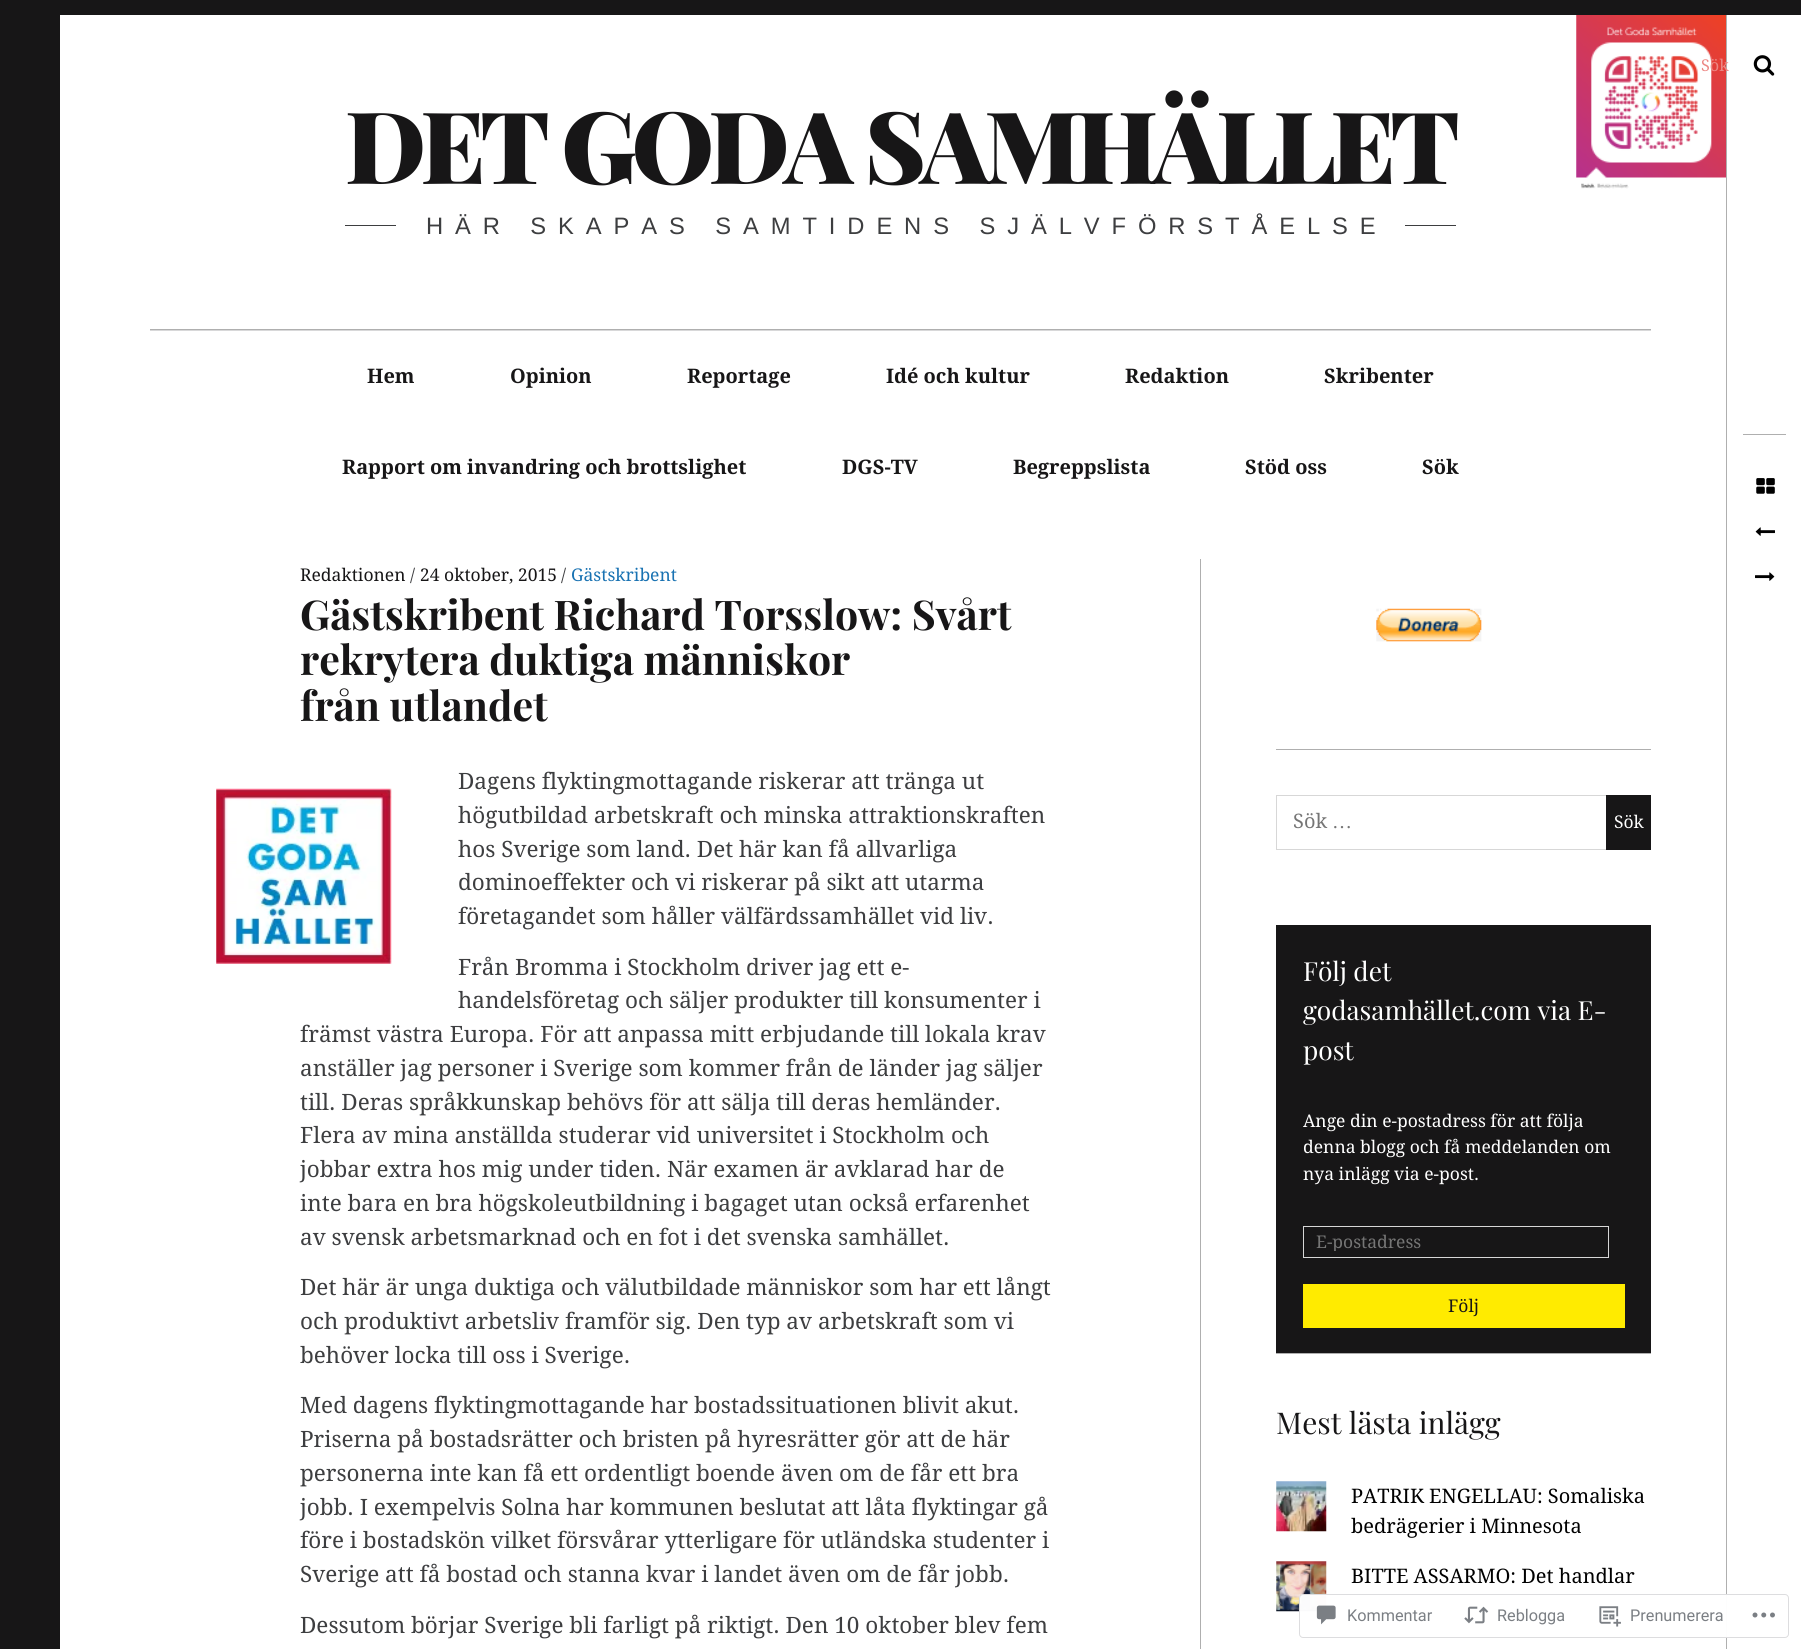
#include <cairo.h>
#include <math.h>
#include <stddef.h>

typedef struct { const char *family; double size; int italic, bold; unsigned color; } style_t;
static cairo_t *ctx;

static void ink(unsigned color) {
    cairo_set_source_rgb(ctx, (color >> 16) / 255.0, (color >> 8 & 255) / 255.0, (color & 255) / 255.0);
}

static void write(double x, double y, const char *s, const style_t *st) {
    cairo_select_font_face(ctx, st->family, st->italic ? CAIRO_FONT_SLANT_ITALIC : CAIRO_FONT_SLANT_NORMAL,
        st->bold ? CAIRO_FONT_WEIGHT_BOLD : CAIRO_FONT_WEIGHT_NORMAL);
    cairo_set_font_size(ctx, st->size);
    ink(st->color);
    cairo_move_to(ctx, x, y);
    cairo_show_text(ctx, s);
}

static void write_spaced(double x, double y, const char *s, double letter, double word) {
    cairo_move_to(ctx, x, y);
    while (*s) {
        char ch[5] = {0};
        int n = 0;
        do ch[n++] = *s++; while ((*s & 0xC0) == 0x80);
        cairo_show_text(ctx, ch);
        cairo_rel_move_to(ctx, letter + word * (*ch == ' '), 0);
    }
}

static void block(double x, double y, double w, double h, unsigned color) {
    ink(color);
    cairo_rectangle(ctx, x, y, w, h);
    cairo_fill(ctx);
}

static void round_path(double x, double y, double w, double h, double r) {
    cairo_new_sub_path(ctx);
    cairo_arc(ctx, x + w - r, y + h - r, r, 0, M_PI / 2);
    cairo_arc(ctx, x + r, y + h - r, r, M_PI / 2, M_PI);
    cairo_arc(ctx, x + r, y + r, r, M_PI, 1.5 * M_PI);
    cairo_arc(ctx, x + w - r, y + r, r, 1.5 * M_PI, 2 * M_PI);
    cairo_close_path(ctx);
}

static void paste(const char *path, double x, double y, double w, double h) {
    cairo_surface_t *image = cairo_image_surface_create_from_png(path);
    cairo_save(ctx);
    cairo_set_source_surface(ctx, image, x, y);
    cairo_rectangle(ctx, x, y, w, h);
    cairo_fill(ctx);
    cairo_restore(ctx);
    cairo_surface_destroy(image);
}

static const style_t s1 = {"Droid Serif", 16.25, 0, 0, 0xec8885};
static const style_t s2 = {"Droid Serif", 20, 0, 1, 0x171617};
static const style_t s3 = {"Droid Serif", 17.5, 0, 0, 0x171617};
static const style_t s4 = {"Droid Serif", 17.5, 0, 0, 0x3d3e40};
static const style_t s5 = {"Droid Serif", 17.5, 0, 0, 0x1972b2};
static const style_t s6 = {"Playfair Display", 41, 0, 1, 0x171617};
static const style_t s7 = {"Droid Serif", 22.5, 0, 0, 0x3d3e40};
static const style_t s8 = {"Droid Serif", 20, 0, 0, 0x757575};
static const style_t s9 = {"Liberation Serif", 20, 0, 0, 0x757575};
static const style_t s10 = {"Droid Serif", 17.5, 0, 0, 0xffffff};
static const style_t s11 = {"Playfair Display", 26.25, 0, 0, 0xffffff};
static const style_t s12 = {"Droid Serif", 17.5, 0, 0, 0x757575};
static const style_t s13 = {"Playfair Display", 30, 0, 0, 0x171617};
static const style_t s14 = {"Droid Serif", 20, 0, 0, 0x000000};
static const style_t s15 = {"Roboto", 16.25, 0, 0, 0x7b7f84};

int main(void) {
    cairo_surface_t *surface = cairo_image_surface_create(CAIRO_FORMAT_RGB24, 1801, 1649);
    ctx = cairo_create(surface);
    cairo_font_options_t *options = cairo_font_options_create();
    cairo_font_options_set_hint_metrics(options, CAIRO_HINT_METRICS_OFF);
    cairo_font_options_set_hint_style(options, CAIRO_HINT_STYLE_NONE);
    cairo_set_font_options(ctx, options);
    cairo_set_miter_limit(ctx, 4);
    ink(0xffffff);
    cairo_paint(ctx);
    block(0, 0, 60, 1649, 0x171617);
    block(60, 0, 1741, 15, 0x171617);
    block(1726, 15, 1, 1634, 0xafafaf);
    paste("pic5.png", 1576, 15, 150, 174);
    write(1701, 71, "Sök", &s1);
    paste("pic1.png", 1753, 55, 22, 21);
    block(1743, 434, 43, 1, 0xafafaf);
    paste("pic2.png", 1756, 478, 19, 16);
    paste("pic3.png", 1755, 527, 20, 9);
    paste("pic4.png", 1755, 572, 20, 9);
    cairo_select_font_face(ctx, "Playfair Display Black", CAIRO_FONT_SLANT_NORMAL, CAIRO_FONT_WEIGHT_NORMAL);
    cairo_set_font_size(ctx, 100);
    ink(0x171617);
    write_spaced(345, 184, "DET GODA SAMHÄLLET", -5.5, 0);
    block(345, 225, 1111, 1, 0x3d3e40);
    block(396, 225, 1009, 1, 0xffffff);
    cairo_select_font_face(ctx, "Liberation Sans", CAIRO_FONT_SLANT_NORMAL, CAIRO_FONT_WEIGHT_NORMAL);
    cairo_set_font_size(ctx, 23.75);
    ink(0x3d3e40);
    write_spaced(426, 234, "HÄR SKAPAS SAMTIDENS SJÄLVFÖRSTÅELSE", 11.9, 0);
    block(150, 329, 1501, 1, 0xafafaf);
    block(150, 330, 1501, 1, 0xd8d8d9);
    write(367, 383, "Hem", &s2);
    write(510, 383, "Opinion", &s2);
    write(687, 383, "Reportage", &s2);
    write(886, 383, "Idé och kultur", &s2);
    write(1125, 383, "Redaktion", &s2);
    write(1324, 383, "Skribenter", &s2);
    write(342, 474, "Rapport om invandring och brottslighet", &s2);
    write(842, 474, "DGS-TV", &s2);
    write(1013, 474, "Begreppslista", &s2);
    write(1245, 474, "Stöd oss", &s2);
    write(1422, 474, "Sök", &s2);
    write(300, 581, "Redaktionen", &s3);
    write(410, 581, "/", &s4);
    write(420, 581, "24 oktober, 2015", &s3);
    write(561, 581, "/", &s4);
    write(571, 581, "Gästskribent", &s5);
    write(300, 630, "Gästskribent Richard Torsslow: Svårt", &s6);
    write(300, 675, "rekrytera duktiga människor", &s6);
    write(300, 721, "från utlandet", &s6);
    write(458, 789, "Dagens flyktingmottagande riskerar att tränga ut", &s7);
    paste("pic6.png", 216, 788, 176, 176);
    write(458, 823, "högutbildad arbetskraft och minska attraktionskraften", &s7);
    write(458, 857, "hos Sverige som land. Det här kan få allvarliga", &s7);
    write(458, 890, "dominoeffekter och vi riskerar på sikt att utarma", &s7);
    write(458, 924, "företagandet som håller välfärdssamhället vid liv.", &s7);
    write(458, 975, "Från Bromma i Stockholm driver jag ett e-", &s7);
    write(458, 1008, "handelsföretag och säljer produkter till konsumenter i", &s7);
    write(300, 1042, "främst västra Europa. För att anpassa mitt erbjudande till lokala krav", &s7);
    write(300, 1076, "anställer jag personer i Sverige som kommer från de länder jag säljer", &s7);
    write(300, 1110, "till. Deras språkkunskap behövs för att sälja till deras hemländer.", &s7);
    write(300, 1143, "Flera av mina anställda studerar vid universitet i Stockholm och", &s7);
    write(300, 1177, "jobbar extra hos mig under tiden. När examen är avklarad har de", &s7);
    write(300, 1211, "inte bara en bra högskoleutbildning i bagaget utan också erfarenhet", &s7);
    write(300, 1245, "av svensk arbetsmarknad och en fot i det svenska samhället.", &s7);
    write(300, 1295, "Det här är unga duktiga och välutbildade människor som har ett långt", &s7);
    write(300, 1329, "och produktivt arbetsliv framför sig. Den typ av arbetskraft som vi", &s7);
    write(300, 1363, "behöver locka till oss i Sverige.", &s7);
    write(300, 1413, "Med dagens flyktingmottagande har bostadssituationen blivit akut.", &s7);
    write(300, 1447, "Priserna på bostadsrätter och bristen på hyresrätter gör att de här", &s7);
    write(300, 1481, "personerna inte kan få ett ordentligt boende även om de får ett bra", &s7);
    write(300, 1515, "jobb. I exempelvis Solna har kommunen beslutat att låta flyktingar gå", &s7);
    write(300, 1548, "före i bostadskön vilket försvårar ytterligare för utländska studenter i", &s7);
    write(300, 1582, "Sverige att få bostad och stanna kvar i landet även om de får jobb.", &s7);
    write(300, 1633, "Dessutom börjar Sverige bli farligt på riktigt. Den 10 oktober blev fem", &s7);
    block(1200, 559, 1, 1090, 0xafafaf);
    paste("pic7.png", 1376, 608, 106, 34);
    block(1276, 749, 375, 1, 0xafafaf);
    cairo_rectangle(ctx, 1276.5, 795.5, 374, 54);
    ink(0xd7d7d7);
    cairo_set_line_width(ctx, 1);
    cairo_stroke(ctx);
    write(1293, 828, "Sök", &s8);
    write(1332, 828, "…", &s9);
    block(1606, 795, 45, 55, 0x171617);
    write(1614, 828, "Sök", &s10);
    block(1276, 925, 375, 428, 0x171617);
    write(1303, 981, "Följ det", &s11);
    write(1303, 1020, "godasamhället.com via E-", &s11);
    write(1303, 1060, "post", &s11);
    write(1303, 1127, "Ange din e-postadress för att följa", &s10);
    write(1303, 1153, "denna blogg och få meddelanden om", &s10);
    write(1303, 1180, "nya inlägg via e-post.", &s10);
    cairo_rectangle(ctx, 1303.5, 1226.5, 305, 31);
    ink(0xd7d7d7);
    cairo_stroke(ctx);
    cairo_save(ctx);
    cairo_rectangle(ctx, 1316, 1231, 279, 20);
    cairo_clip(ctx);
    write(1316, 1248, "E-postadress", &s12);
    cairo_restore(ctx);
    block(1303, 1284, 322, 44, 0xffeb00);
    write(1448, 1312, "Följ", &s3);
    block(1276, 1353, 375, 1, 0xafafaf);
    write(1276, 1434, "Mest lästa inlägg", &s13);
    paste("pic8.png", 1276, 1481, 51, 51);
    write(1351, 1503, "PATRIK ENGELLAU: Somaliska", &s14);
    write(1351, 1533, "bedrägerier i Minnesota", &s14);
    paste("pic9.png", 1276, 1561, 51, 51);
    write(1351, 1583, "BITTE ASSARMO: Det handlar", &s14);
    cairo_set_source_rgba(ctx, 1, 1, 1, 0.98);
    round_path(1299, 1594, 490, 44, 4);
    cairo_fill(ctx);
    round_path(1299.5, 1594.5, 489, 43, 3.5);
    cairo_set_source_rgba(ctx, 0.863, 0.863, 0.871, 0.98);
    cairo_stroke(ctx);
    paste("pic10.png", 1316, 1605, 20, 20);
    write(1347, 1621, "Kommentar", &s15);
    paste("pic11.png", 1464, 1606, 25, 18);
    write(1497, 1621, "Reblogga", &s15);
    paste("pic12.png", 1599, 1606, 22, 21);
    write(1630, 1621, "Prenumerera", &s15);
    paste("pic13.png", 1752, 1612, 23, 6);
    cairo_surface_write_to_png(surface, "screenshot.png");
    cairo_font_options_destroy(options);
    cairo_destroy(ctx);
    cairo_surface_destroy(surface);
    return 0;
}
